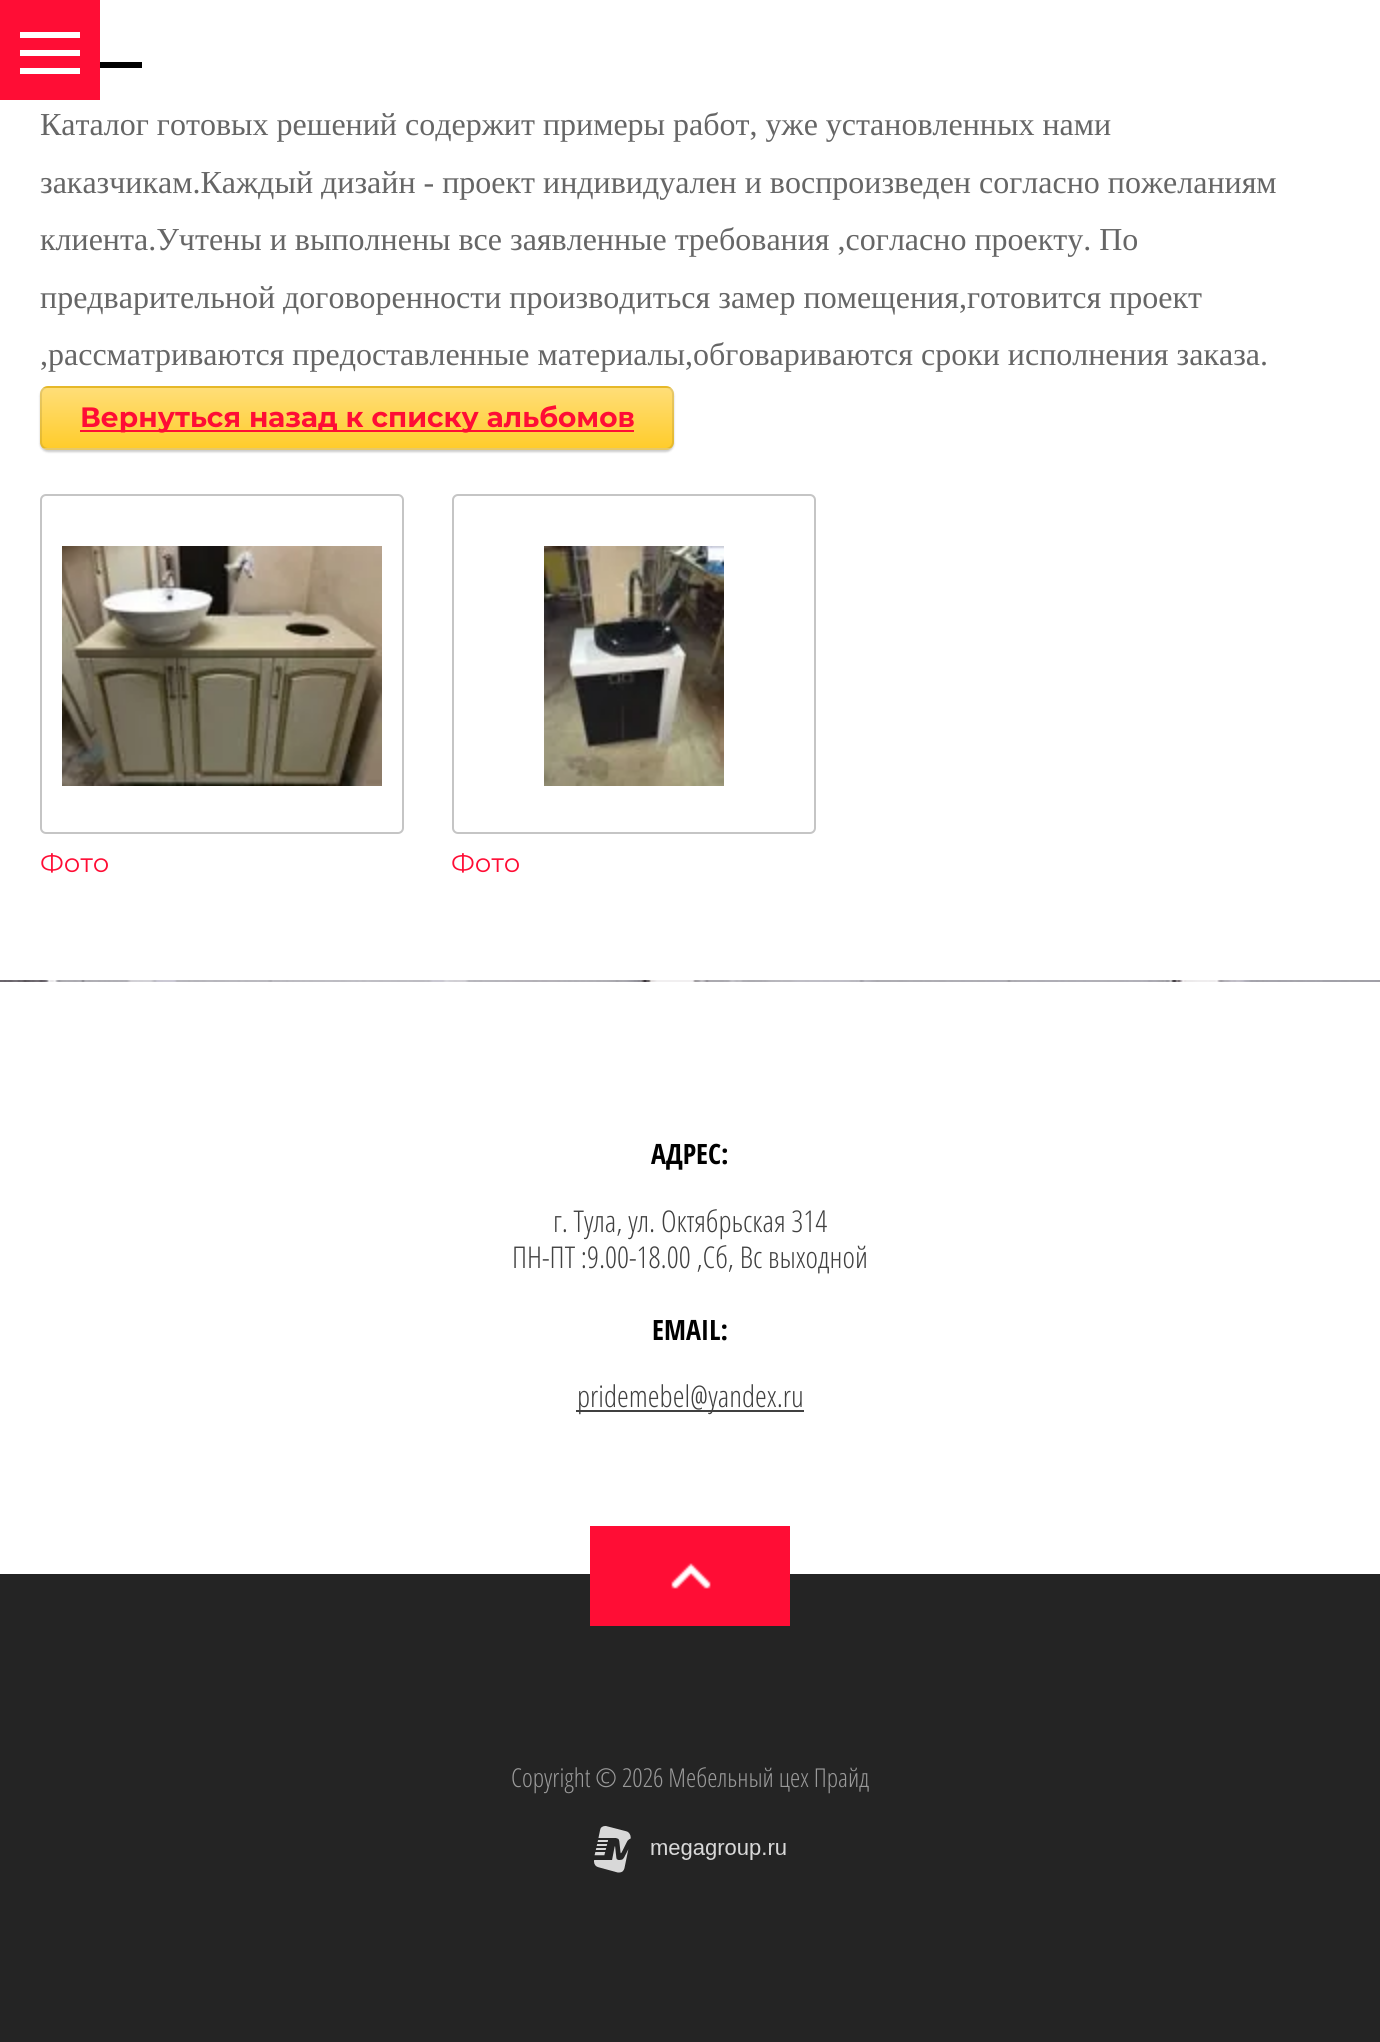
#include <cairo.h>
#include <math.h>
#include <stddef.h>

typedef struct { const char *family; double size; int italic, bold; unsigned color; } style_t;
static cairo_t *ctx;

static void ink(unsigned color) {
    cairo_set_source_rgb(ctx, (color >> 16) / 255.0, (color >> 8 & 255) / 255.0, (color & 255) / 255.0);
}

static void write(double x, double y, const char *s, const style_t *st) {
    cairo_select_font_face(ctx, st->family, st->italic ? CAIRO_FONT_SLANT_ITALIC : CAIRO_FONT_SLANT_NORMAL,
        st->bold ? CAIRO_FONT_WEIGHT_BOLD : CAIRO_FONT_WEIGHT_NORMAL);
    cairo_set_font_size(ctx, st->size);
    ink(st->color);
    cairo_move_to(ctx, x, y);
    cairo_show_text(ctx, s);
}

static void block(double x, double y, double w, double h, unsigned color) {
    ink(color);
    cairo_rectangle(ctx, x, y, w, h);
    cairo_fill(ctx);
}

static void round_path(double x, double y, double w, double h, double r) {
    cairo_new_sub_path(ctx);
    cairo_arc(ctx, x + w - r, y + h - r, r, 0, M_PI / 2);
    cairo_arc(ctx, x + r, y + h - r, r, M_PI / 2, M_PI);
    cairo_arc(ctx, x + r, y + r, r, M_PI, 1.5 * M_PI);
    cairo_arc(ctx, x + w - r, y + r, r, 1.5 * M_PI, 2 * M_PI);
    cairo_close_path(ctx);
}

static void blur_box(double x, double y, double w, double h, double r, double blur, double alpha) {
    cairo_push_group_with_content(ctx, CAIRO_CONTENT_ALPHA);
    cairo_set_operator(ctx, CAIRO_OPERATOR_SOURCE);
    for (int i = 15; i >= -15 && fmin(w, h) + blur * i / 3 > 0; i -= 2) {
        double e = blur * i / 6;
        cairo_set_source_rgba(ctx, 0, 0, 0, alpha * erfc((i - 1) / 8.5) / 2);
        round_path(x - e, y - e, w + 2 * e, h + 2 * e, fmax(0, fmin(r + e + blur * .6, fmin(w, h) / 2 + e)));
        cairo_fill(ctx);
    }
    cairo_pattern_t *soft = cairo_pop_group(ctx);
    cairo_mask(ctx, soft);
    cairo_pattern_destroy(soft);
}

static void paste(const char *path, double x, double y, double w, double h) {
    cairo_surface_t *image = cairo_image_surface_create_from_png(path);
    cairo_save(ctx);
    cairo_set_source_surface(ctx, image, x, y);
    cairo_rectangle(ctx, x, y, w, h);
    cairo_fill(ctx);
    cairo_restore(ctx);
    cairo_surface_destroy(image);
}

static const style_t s1 = {"Liberation Serif", 32, 0, 0, 0x666666};
static const style_t s2 = {"Montserrat", 28, 0, 1, 0xff0d35};
static const style_t s3 = {"Montserrat", 26, 0, 0, 0xff0d35};
static const style_t s4 = {"Open Sans Condensed", 28, 0, 1, 0x000000};
static const style_t s5 = {"Open Sans Light", 30, 0, 0, 0x404040};
static const style_t s6 = {"Open Sans Light", 26, 0, 0, 0x9a9a9a};

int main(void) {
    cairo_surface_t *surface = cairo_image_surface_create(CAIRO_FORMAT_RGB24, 1380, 2042);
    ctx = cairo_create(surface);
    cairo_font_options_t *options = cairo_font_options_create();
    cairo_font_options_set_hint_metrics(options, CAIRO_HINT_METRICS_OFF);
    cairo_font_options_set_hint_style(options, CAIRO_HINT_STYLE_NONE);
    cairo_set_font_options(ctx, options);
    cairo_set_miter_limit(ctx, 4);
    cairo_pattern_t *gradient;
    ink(0xffffff);
    cairo_paint(ctx);
    block(0, 0, 100, 100, 0xff0d35);
    block(20, 32, 60, 6, 0xffffff);
    block(20, 50, 60, 6, 0xffffff);
    block(20, 68, 60, 6, 0xffffff);
    block(100, 62, 42, 6, 0x000000);
    write(40, 135, "Каталог готовых решений содержит примеры работ, уже установленных нами", &s1);
    write(40, 193, "заказчикам.Каждый дизайн - проект индивидуален и воспроизведен согласно пожеланиям", &s1);
    write(40, 250, "клиента.Учтены и выполнены все заявленные требования ,согласно проекту. По", &s1);
    write(40, 308, "предварительной договоренности производиться замер помещения,готовится проект", &s1);
    write(40, 365, ",рассматриваются предоставленные материалы,обговариваются сроки исполнения заказа.", &s1);
    ink(0x000000);
    blur_box(40, 388, 634, 64, 8, 1, 0.2);
    cairo_save(ctx);
    round_path(40, 386, 634, 64, 8);
    cairo_clip(ctx);
    gradient = cairo_pattern_create_linear(357, 328, 357, 388);
    cairo_pattern_add_color_stop_rgba(gradient, 0, 1, 0.871, 0.471, 1);
    cairo_pattern_add_color_stop_rgba(gradient, 1, 1, 0.8, 0.169, 1);
    cairo_set_source(ctx, gradient);
    cairo_pattern_destroy(gradient);
    cairo_rectangle(ctx, 40, 386, 634, 2);
    cairo_fill(ctx);
    gradient = cairo_pattern_create_linear(357, 388, 357, 448);
    cairo_pattern_add_color_stop_rgba(gradient, 0, 1, 0.871, 0.471, 1);
    cairo_pattern_add_color_stop_rgba(gradient, 1, 1, 0.8, 0.169, 1);
    cairo_set_source(ctx, gradient);
    cairo_pattern_destroy(gradient);
    cairo_rectangle(ctx, 40, 388, 634, 60);
    cairo_fill(ctx);
    gradient = cairo_pattern_create_linear(357, 448, 357, 508);
    cairo_pattern_add_color_stop_rgba(gradient, 0, 1, 0.871, 0.471, 1);
    cairo_pattern_add_color_stop_rgba(gradient, 1, 1, 0.8, 0.169, 1);
    cairo_set_source(ctx, gradient);
    cairo_pattern_destroy(gradient);
    cairo_rectangle(ctx, 40, 448, 634, 2);
    cairo_fill(ctx);
    cairo_restore(ctx);
    round_path(41, 387, 632, 62, 7);
    cairo_set_source_rgba(ctx, 0, 0, 0, 0.1);
    cairo_stroke(ctx);
    block(80, 430, 554, 2, 0xff0d35);
    write(80, 427, "Вернуться назад к списку альбомов", &s2);
    round_path(41, 495, 362, 338, 5);
    ink(0xc5c5c5);
    cairo_stroke(ctx);
    paste("pic1.png", 62, 546, 320, 240);
    write(40, 872, "Фото", &s3);
    round_path(453, 495, 362, 338, 5);
    ink(0xc5c5c5);
    cairo_stroke(ctx);
    paste("pic2.png", 544, 546, 180, 240);
    write(451, 872, "Фото", &s3);
    paste("pic3.png", 0, 980, 1380, 2);
    write(651, 1164, "АДРЕС:", &s4);
    write(553, 1232, "г. Тула, ул. Октябрьская 314", &s5);
    write(512, 1268, "ПН-ПТ :9.00-18.00 ,Сб, Вс выходной", &s5);
    write(652, 1340, "EMAIL:", &s4);
    block(576, 1410, 228, 2, 0x404040);
    write(577, 1407, "pridemebel@yandex.ru", &s5);
    block(0, 1574, 1380, 468, 0x242424);
    block(590, 1526, 200, 100, 0xff0d35);
    paste("pic4.png", 671, 1563, 40, 26);
    write(511, 1787, "Copyright © 2026 Мебельный цех Прайд", &s6);
    paste("pic5.png", 594, 1826, 192, 47);
    cairo_surface_write_to_png(surface, "screenshot.png");
    cairo_font_options_destroy(options);
    cairo_destroy(ctx);
    cairo_surface_destroy(surface);
    return 0;
}
